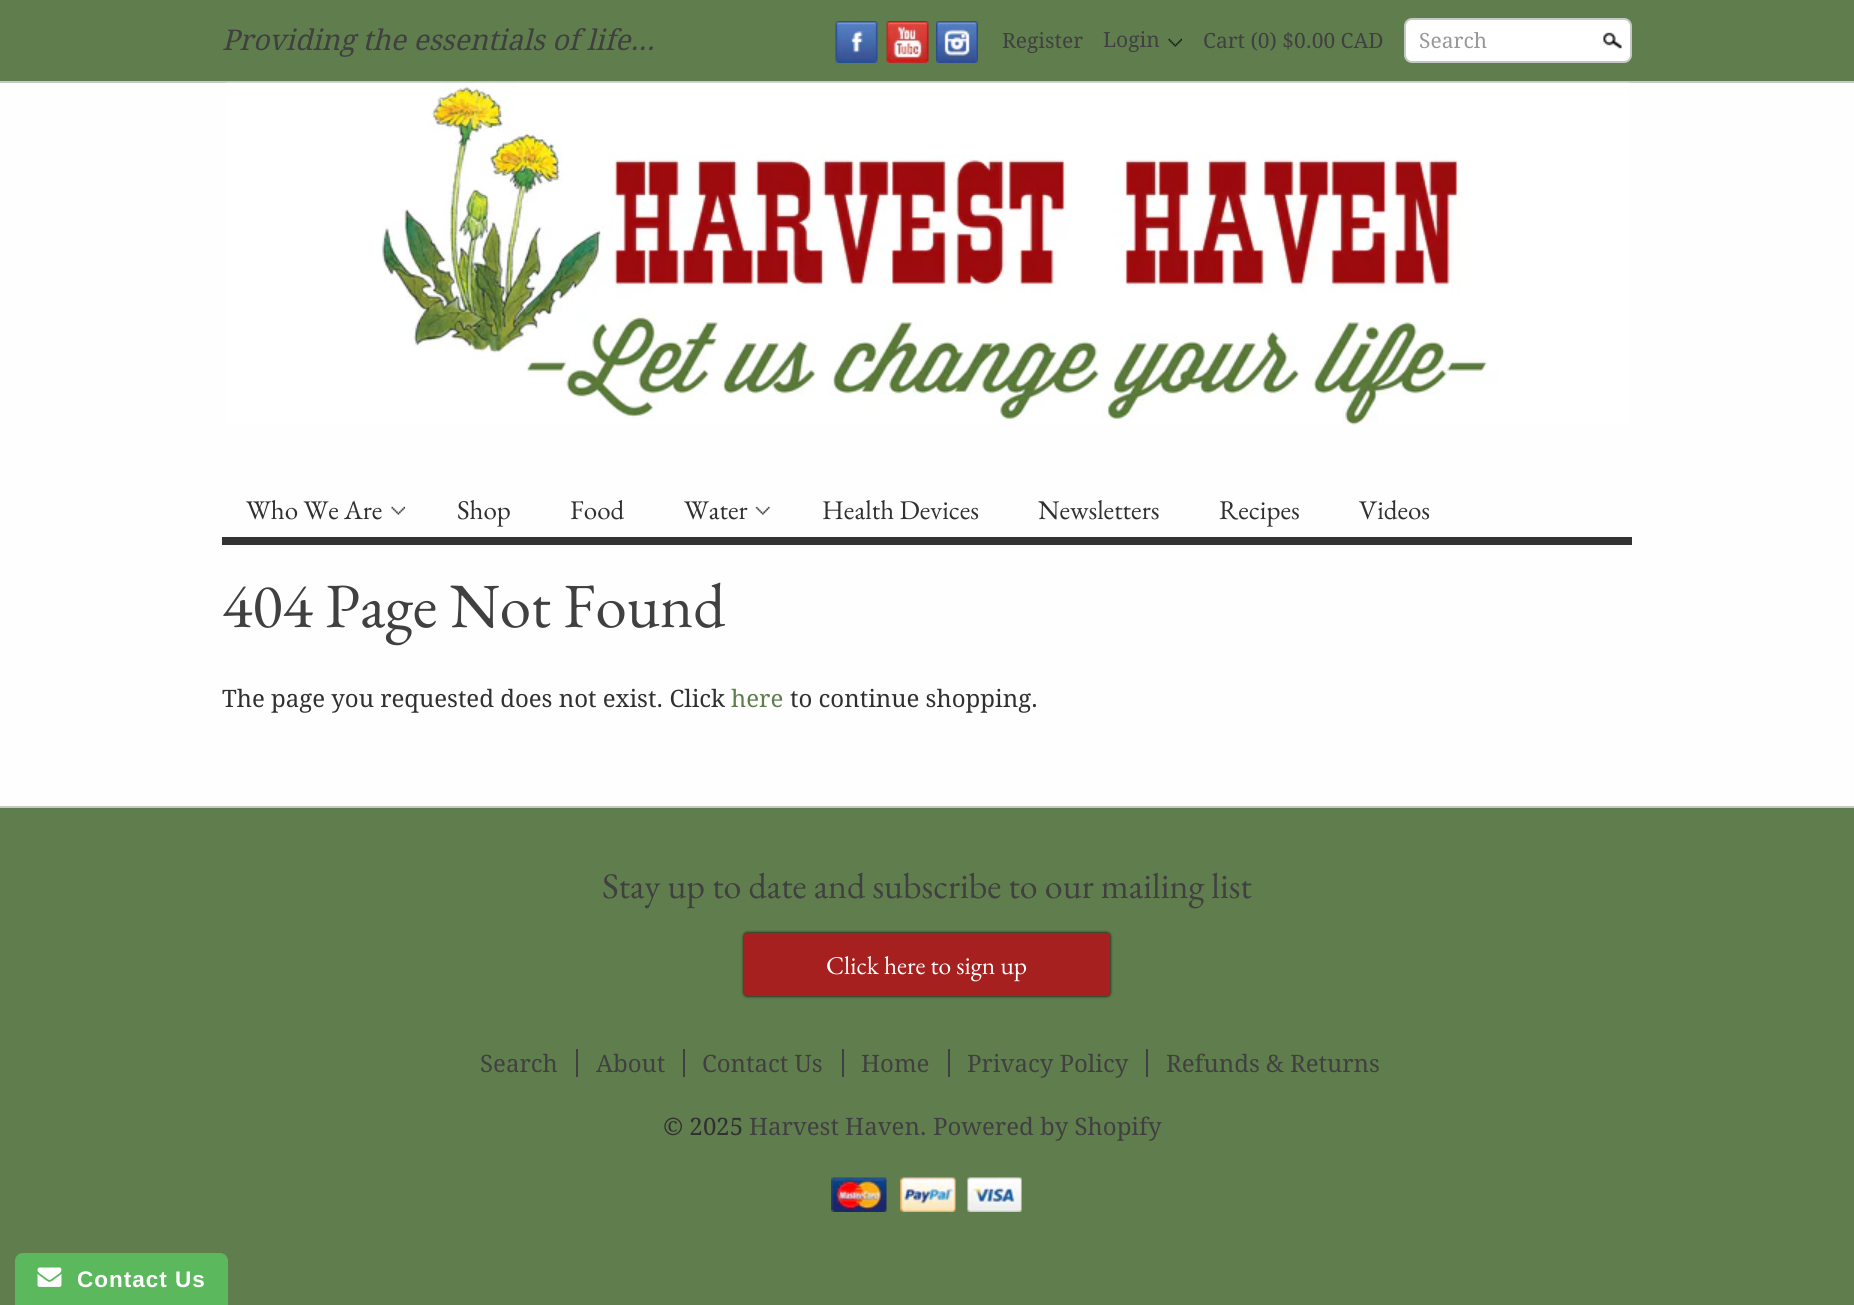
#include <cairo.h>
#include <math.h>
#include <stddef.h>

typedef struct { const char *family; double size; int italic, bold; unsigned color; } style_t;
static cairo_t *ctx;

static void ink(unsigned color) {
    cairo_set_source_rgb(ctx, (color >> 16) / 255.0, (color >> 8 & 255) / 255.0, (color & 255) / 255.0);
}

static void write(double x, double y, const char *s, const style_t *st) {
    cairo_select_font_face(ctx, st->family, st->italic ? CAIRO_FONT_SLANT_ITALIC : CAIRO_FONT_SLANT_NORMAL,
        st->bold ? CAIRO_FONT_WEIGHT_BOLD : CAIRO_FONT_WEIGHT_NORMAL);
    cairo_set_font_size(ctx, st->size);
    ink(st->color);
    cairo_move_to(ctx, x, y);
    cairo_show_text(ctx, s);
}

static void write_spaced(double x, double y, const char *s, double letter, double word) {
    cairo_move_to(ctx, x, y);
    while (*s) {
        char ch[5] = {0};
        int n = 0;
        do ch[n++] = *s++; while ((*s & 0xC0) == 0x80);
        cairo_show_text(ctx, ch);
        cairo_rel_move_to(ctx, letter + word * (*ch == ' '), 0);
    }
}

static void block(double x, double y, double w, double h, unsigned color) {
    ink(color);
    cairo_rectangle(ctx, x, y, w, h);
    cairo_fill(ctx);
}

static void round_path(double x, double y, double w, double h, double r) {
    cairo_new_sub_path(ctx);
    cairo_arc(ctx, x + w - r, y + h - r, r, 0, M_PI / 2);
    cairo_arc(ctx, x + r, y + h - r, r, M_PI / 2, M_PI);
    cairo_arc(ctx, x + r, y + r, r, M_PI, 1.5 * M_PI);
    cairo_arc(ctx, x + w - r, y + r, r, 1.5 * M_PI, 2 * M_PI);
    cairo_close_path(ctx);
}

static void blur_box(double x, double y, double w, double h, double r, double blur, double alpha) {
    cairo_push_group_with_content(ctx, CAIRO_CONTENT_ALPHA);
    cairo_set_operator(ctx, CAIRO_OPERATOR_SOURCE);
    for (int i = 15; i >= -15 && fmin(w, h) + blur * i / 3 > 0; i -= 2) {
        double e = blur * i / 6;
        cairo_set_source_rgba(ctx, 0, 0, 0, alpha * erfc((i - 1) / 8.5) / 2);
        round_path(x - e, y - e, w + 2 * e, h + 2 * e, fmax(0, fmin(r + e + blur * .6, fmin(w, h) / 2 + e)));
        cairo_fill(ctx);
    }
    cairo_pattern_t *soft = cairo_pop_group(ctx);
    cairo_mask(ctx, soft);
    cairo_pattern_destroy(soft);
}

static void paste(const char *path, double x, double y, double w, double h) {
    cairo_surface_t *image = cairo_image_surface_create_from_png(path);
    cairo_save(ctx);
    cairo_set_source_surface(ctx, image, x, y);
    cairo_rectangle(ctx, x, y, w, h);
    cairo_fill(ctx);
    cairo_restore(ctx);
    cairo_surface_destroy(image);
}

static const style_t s1 = {"Droid Serif", 28.5, 1, 0, 0x404040};
static const style_t s2 = {"Droid Serif", 21, 0, 0, 0x404040};
static const style_t s3 = {"Droid Serif", 21, 0, 0, 0x989898};
static const style_t s4 = {"EB Garamond", 27, 0, 0, 0x303030};
static const style_t s5 = {"EB Garamond", 63, 0, 0, 0x404040};
static const style_t s6 = {"Droid Serif", 24, 0, 0, 0x303030};
static const style_t s7 = {"Droid Serif", 24, 0, 0, 0x607d4d};
static const style_t s8 = {"EB Garamond", 36, 0, 0, 0x404040};
static const style_t s9 = {"EB Garamond", 25.5, 0, 0, 0xffffff};
static const style_t s10 = {"Droid Serif", 24, 0, 0, 0x404040};

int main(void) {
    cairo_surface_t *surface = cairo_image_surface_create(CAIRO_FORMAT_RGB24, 1854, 1305);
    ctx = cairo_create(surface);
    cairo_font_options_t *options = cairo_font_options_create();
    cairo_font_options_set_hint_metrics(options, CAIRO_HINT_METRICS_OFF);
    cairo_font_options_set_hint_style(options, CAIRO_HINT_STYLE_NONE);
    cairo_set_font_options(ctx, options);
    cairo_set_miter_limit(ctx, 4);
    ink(0x607d4d);
    cairo_paint(ctx);
    write(222, 50, "Providing the essentials of life...", &s1);
    paste("pic1.png", 835, 21, 43, 42);
    paste("pic2.png", 886, 21, 43, 42);
    paste("pic3.png", 936, 21, 42, 42);
    write(1002, 48, "Register", &s2);
    paste("pic4.png", 1168, 38, 14, 9);
    write(1103, 47, "Login", &s2);
    write(1203, 48, "Cart (0) $0.00 CAD", &s2);
    ink(0xffffff);
    round_path(1405, 19, 226, 43, 7);
    cairo_fill_preserve(ctx);
    ink(0xc4c9c5);
    cairo_stroke(ctx);
    write(1419, 48, "Search", &s3);
    paste("pic5.png", 1603, 32, 19, 17);
    block(0, 83, 1854, 723, 0xfefefe);
    block(0, 81, 1854, 2, 0xc4c9c5);
    paste("pic6.png", 226, 82, 1403, 343);
    block(222, 537, 1410, 8, 0x333333);
    paste("pic7.png", 391, 506, 14, 9);
    write(246, 519, "Who We Are", &s4);
    write(457, 519, "Shop", &s4);
    write(570, 519, "Food", &s4);
    paste("pic8.png", 755, 506, 15, 9);
    write(684, 519, "Water", &s4);
    write(822, 519, "Health Devices", &s4);
    write(1038, 519, "Newsletters", &s4);
    write(1219, 519, "Recipes", &s4);
    write(1359, 519, "Videos", &s4);
    write(222, 627, "404 Page Not Found", &s5);
    write(222, 707, "The page you requested does not exist. Click", &s6);
    write(731, 707, "here", &s7);
    write(790, 707, "to continue shopping.", &s6);
    block(0, 806, 1854, 2, 0xc4c9c5);
    write(602, 898, "Stay up to date and subscribe to our mailing list", &s8);
    ink(0x000000);
    blur_box(744, 933, 366, 63, 3, 1.5, 1);
    ink(0xa72020);
    round_path(744, 933, 366, 63, 3);
    cairo_fill(ctx);
    write(826, 974, "Click here to sign up", &s9);
    write(480, 1072, "Search", &s10);
    write(596, 1072, "About", &s10);
    block(576, 1049, 2, 28, 0x404040);
    write(702, 1072, "Contact Us", &s10);
    block(683, 1049, 2, 28, 0x404040);
    write(861, 1072, "Home", &s10);
    block(842, 1049, 2, 28, 0x404040);
    write(967, 1072, "Privacy Policy", &s10);
    block(948, 1049, 2, 28, 0x404040);
    write(1166, 1072, "Refunds & Returns", &s10);
    block(1146, 1049, 2, 28, 0x404040);
    write(663, 1135, "© 2025", &s6);
    write(749, 1135, "Harvest Haven. Powered by Shopify", &s10);
    paste("pic9.png", 831, 1177, 56, 35);
    paste("pic10.png", 900, 1177, 56, 35);
    paste("pic11.png", 967, 1177, 55, 35);
    ink(0x5cb85c);
    cairo_new_path(ctx);
    cairo_move_to(ctx, 23, 1253);
    cairo_line_to(ctx, 220, 1253);
    cairo_curve_to(ctx, 224.5, 1253, 228, 1256.5, 228, 1261);
    cairo_line_to(ctx, 228, 1305);
    cairo_line_to(ctx, 15, 1305);
    cairo_line_to(ctx, 15, 1261);
    cairo_curve_to(ctx, 15, 1256.5, 18.5, 1253, 23, 1253);
    cairo_close_path(ctx);
    cairo_fill(ctx);
    paste("pic12.png", 37, 1267, 25, 20);
    cairo_select_font_face(ctx, "Liberation Sans", CAIRO_FONT_SLANT_NORMAL, CAIRO_FONT_WEIGHT_BOLD);
    cairo_set_font_size(ctx, 22.5);
    ink(0xffffff);
    write_spaced(77, 1287, "Contact Us", 1, 0);
    cairo_surface_write_to_png(surface, "screenshot.png");
    cairo_font_options_destroy(options);
    cairo_destroy(ctx);
    cairo_surface_destroy(surface);
    return 0;
}
